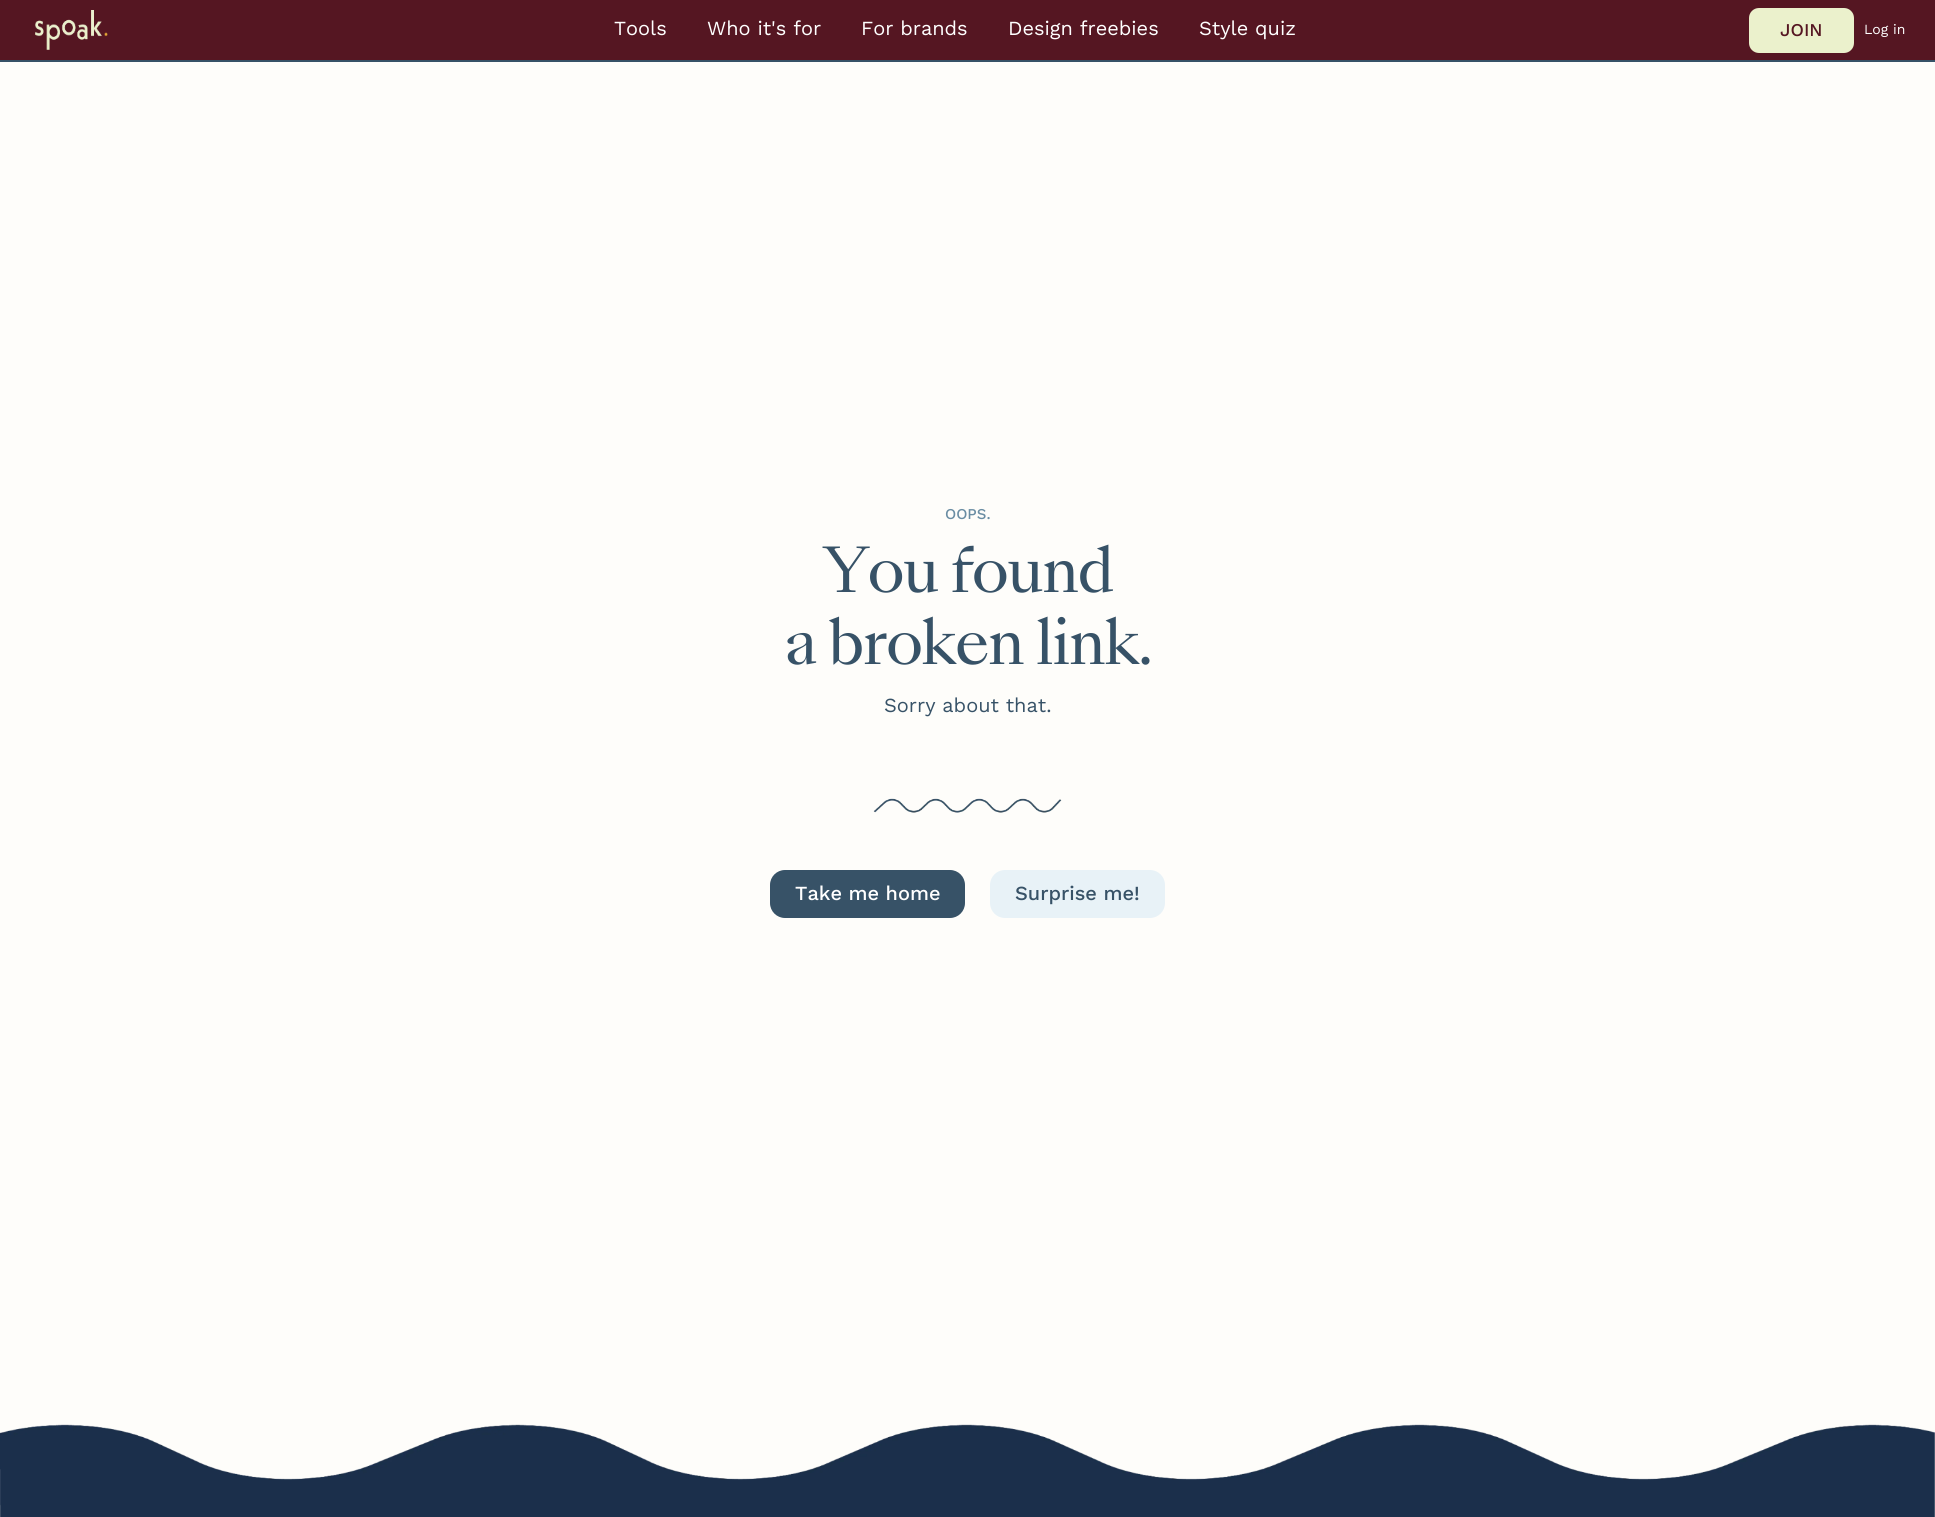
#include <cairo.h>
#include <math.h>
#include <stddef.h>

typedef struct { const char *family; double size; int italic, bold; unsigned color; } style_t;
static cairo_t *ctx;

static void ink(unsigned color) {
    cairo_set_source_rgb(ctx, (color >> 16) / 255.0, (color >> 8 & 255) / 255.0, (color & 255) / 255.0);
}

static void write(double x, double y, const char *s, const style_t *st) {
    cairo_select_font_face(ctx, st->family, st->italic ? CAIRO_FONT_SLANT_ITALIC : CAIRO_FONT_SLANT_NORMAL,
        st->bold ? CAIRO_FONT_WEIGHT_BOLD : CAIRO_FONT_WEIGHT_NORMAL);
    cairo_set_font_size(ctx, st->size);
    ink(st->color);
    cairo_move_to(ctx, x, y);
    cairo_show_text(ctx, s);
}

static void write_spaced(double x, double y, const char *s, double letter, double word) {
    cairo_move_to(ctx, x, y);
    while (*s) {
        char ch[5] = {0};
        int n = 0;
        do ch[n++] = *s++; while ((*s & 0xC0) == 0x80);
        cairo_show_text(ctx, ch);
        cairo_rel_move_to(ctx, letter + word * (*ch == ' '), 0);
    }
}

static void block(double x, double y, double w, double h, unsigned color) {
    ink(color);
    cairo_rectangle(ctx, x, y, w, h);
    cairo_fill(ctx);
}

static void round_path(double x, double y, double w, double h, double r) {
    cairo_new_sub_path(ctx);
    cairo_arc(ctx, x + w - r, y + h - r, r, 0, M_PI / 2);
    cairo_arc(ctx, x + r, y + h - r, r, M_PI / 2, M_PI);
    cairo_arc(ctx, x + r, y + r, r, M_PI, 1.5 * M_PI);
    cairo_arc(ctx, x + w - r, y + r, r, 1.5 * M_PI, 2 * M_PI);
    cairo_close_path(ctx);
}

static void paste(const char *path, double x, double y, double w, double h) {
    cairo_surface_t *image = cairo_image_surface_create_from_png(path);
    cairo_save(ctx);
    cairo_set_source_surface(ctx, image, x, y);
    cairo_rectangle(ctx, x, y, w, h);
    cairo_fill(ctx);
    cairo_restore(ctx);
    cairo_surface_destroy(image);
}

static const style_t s1 = {"Work Sans", 20, 0, 0, 0xffffff};
static const style_t s2 = {"Work Sans Medium", 18, 0, 0, 0x551622};
static const style_t s3 = {"Work Sans", 14, 0, 0, 0xffffff};
static const style_t s4 = {"Work Sans Medium", 15, 0, 0, 0x6a8da3};
static const style_t s5 = {"Work Sans", 20, 0, 0, 0x375267};
static const style_t s6 = {"Work Sans Medium", 20, 0, 0, 0xffffff};
static const style_t s7 = {"Work Sans Medium", 20, 0, 0, 0x375267};

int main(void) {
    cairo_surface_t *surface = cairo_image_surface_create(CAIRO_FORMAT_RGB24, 1935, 1517);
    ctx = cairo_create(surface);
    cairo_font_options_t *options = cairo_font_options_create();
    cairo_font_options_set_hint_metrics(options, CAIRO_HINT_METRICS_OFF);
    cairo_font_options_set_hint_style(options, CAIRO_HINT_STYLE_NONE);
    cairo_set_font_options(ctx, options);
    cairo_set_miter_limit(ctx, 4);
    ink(0xfefdfa);
    cairo_paint(ctx);
    block(0, 60, 1935, 2, 0x375267);
    block(0, 0, 1935, 60, 0x551622);
    paste("pic1.png", 35, 10, 73, 40);
    write(614, 35, "Tools", &s1);
    write(707, 35, "Who it's for", &s1);
    write(861, 35, "For brands", &s1);
    write(1008, 35, "Design freebies", &s1);
    write(1199, 35, "Style quiz", &s1);
    ink(0xebf1cc);
    round_path(1749, 8, 105, 45, 10);
    cairo_fill(ctx);
    write(1780, 36, "JOIN", &s2);
    write(1864, 34, "Log in", &s3);
    write(945, 519, "OOPS.", &s4);
    cairo_select_font_face(ctx, "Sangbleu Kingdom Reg", CAIRO_FONT_SLANT_NORMAL, CAIRO_FONT_WEIGHT_NORMAL);
    cairo_set_font_size(ctx, 60);
    ink(0x375267);
    write_spaced(823, 592, "You found", -1.75, 0);
    write_spaced(785, 664, "a broken link.", -1.75, 0);
    write(884, 712, "Sorry about that.", &s5);
    paste("pic2.png", 873, 798, 189, 15);
    round_path(770, 870, 195, 48, 15);
    cairo_fill(ctx);
    write(795, 900, "Take me home", &s6);
    ink(0xe8f2f7);
    round_path(990, 870, 175, 48, 15);
    cairo_fill(ctx);
    write(1015, 900, "Surprise me!", &s7);
    paste("pic3.png", 0, 1424, 1935, 93);
    cairo_surface_write_to_png(surface, "screenshot.png");
    cairo_font_options_destroy(options);
    cairo_destroy(ctx);
    cairo_surface_destroy(surface);
    return 0;
}
